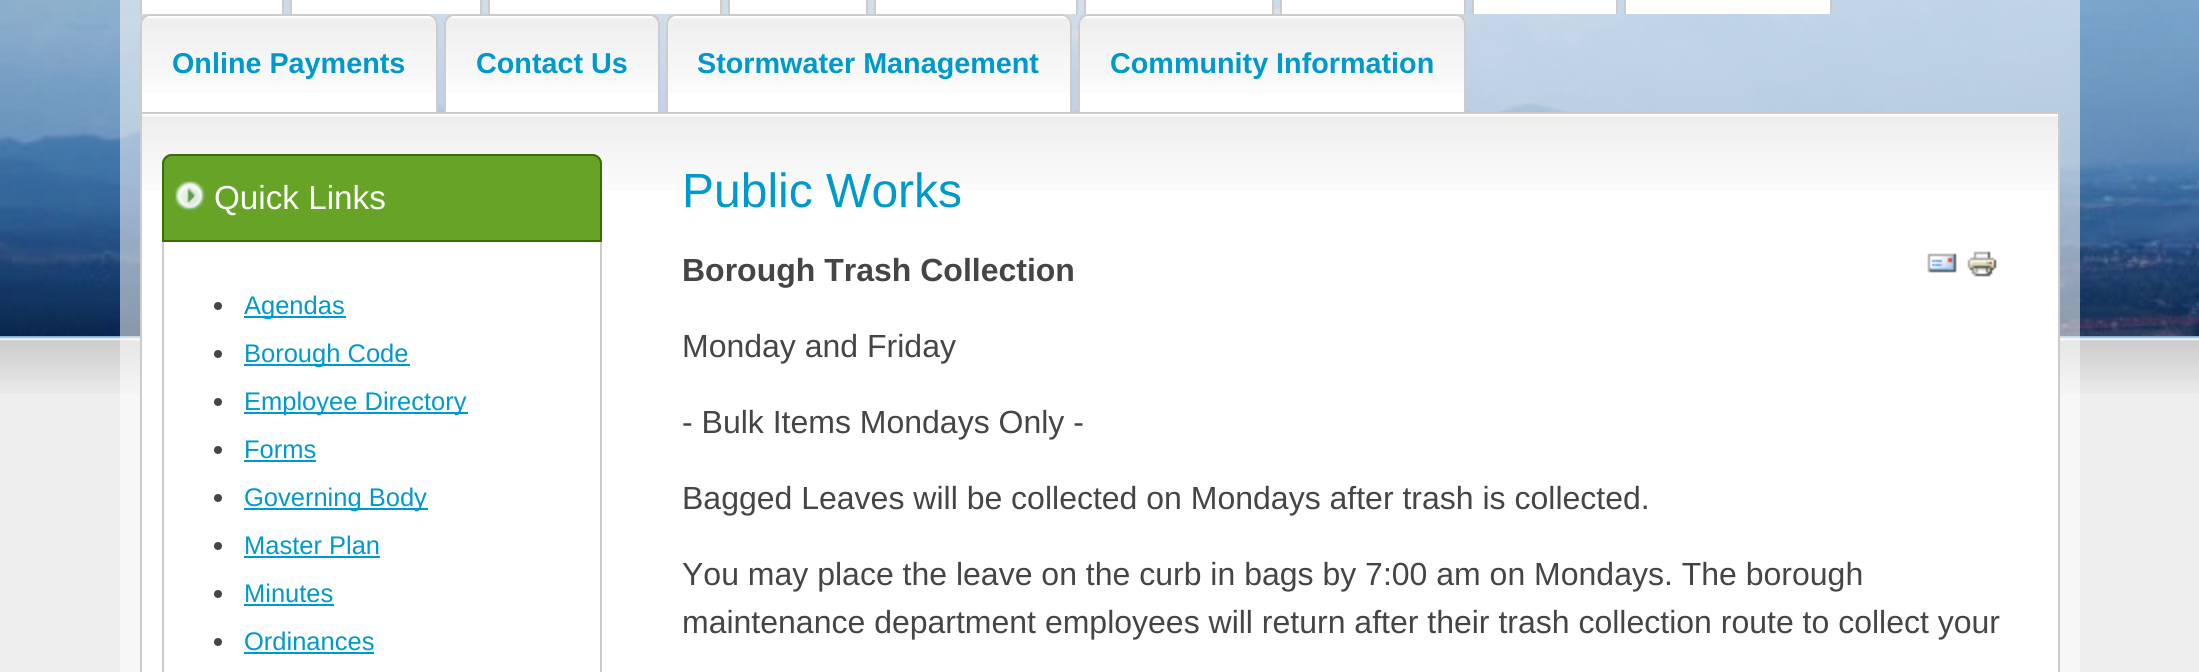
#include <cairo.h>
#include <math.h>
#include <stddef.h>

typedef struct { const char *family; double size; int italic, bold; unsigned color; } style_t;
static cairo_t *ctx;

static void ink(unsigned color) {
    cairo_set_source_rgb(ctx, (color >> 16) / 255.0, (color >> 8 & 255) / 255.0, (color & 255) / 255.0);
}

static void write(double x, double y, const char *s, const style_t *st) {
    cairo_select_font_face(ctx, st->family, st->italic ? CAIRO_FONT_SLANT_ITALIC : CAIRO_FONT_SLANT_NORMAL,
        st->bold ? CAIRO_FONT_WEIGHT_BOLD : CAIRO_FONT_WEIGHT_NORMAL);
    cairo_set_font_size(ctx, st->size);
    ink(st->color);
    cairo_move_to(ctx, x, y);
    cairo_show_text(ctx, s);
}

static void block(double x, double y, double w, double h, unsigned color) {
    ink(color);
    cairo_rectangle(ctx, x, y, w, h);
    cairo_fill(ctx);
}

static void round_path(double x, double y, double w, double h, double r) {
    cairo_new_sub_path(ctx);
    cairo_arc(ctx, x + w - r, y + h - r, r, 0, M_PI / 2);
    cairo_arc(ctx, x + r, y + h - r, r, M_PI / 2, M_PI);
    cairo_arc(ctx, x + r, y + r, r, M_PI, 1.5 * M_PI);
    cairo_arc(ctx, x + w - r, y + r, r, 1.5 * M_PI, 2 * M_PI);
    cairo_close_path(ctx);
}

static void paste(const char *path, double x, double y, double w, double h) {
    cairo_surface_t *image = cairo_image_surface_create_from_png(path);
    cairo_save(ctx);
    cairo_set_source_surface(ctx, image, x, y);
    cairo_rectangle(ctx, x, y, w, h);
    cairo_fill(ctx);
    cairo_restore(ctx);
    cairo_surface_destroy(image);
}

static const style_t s1 = {"Liberation Sans", 28.75, 0, 1, 0x0099cc};
static const style_t s2 = {"Liberation Sans", 33.25, 0, 0, 0xffffff};
static const style_t s3 = {"Liberation Sans", 25.5, 0, 0, 0x0099cc};
static const style_t s4 = {"Liberation Sans", 48, 0, 0, 0x0099cc};
static const style_t s5 = {"Liberation Sans", 32, 0, 1, 0x454545};
static const style_t s6 = {"Liberation Sans", 32, 0, 0, 0x454545};

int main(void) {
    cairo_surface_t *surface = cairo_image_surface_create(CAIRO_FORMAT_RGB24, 2199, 672);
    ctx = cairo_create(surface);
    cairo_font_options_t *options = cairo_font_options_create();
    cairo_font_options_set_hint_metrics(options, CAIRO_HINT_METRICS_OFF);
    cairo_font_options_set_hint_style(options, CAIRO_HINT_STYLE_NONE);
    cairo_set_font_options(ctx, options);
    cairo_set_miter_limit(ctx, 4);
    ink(0xeeeeee);
    cairo_paint(ctx);
    paste("pic1.png", 0, 336, 2199, 58);
    paste("pic2.png", 0, 0, 2199, 336);
    cairo_set_source_rgba(ctx, 1, 1, 1, 0.52);
    cairo_rectangle(ctx, 120, 0, 1960, 672);
    cairo_fill(ctx);
    block(142, 0, 140, 14, 0xffffff);
    ink(0xcccccc);
    cairo_set_fill_rule(ctx, CAIRO_FILL_RULE_EVEN_ODD);
    cairo_new_path(ctx);
    cairo_move_to(ctx, 150, -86);
    cairo_line_to(ctx, 274, -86);
    cairo_curve_to(ctx, 280, -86, 284, -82, 284, -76);
    cairo_line_to(ctx, 284, 14);
    cairo_line_to(ctx, 140, 14);
    cairo_line_to(ctx, 140, -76);
    cairo_curve_to(ctx, 140, -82, 144, -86, 150, -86);
    cairo_close_path(ctx);
    cairo_move_to(ctx, 150, -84);
    cairo_line_to(ctx, 274, -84);
    cairo_curve_to(ctx, 278, -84, 282, -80, 282, -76);
    cairo_line_to(ctx, 282, 14);
    cairo_line_to(ctx, 142, 14);
    cairo_line_to(ctx, 142, -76);
    cairo_curve_to(ctx, 142, -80, 146, -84, 150, -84);
    cairo_close_path(ctx);
    cairo_fill(ctx);
    block(292, 0, 188, 14, 0xffffff);
    ink(0xcccccc);
    cairo_new_path(ctx);
    cairo_move_to(ctx, 300, -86);
    cairo_line_to(ctx, 472, -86);
    cairo_curve_to(ctx, 478, -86, 482, -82, 482, -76);
    cairo_line_to(ctx, 482, 14);
    cairo_line_to(ctx, 290, 14);
    cairo_line_to(ctx, 290, -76);
    cairo_curve_to(ctx, 290, -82, 294, -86, 300, -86);
    cairo_close_path(ctx);
    cairo_move_to(ctx, 300, -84);
    cairo_line_to(ctx, 472, -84);
    cairo_curve_to(ctx, 476, -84, 480, -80, 480, -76);
    cairo_line_to(ctx, 480, 14);
    cairo_line_to(ctx, 292, 14);
    cairo_line_to(ctx, 292, -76);
    cairo_curve_to(ctx, 292, -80, 296, -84, 300, -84);
    cairo_close_path(ctx);
    cairo_fill(ctx);
    block(490, 0, 230, 14, 0xffffff);
    ink(0xcccccc);
    cairo_new_path(ctx);
    cairo_move_to(ctx, 498, -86);
    cairo_line_to(ctx, 712, -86);
    cairo_curve_to(ctx, 718, -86, 722, -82, 722, -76);
    cairo_line_to(ctx, 722, 14);
    cairo_line_to(ctx, 488, 14);
    cairo_line_to(ctx, 488, -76);
    cairo_curve_to(ctx, 488, -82, 492, -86, 498, -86);
    cairo_close_path(ctx);
    cairo_move_to(ctx, 498, -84);
    cairo_line_to(ctx, 712, -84);
    cairo_curve_to(ctx, 716, -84, 720, -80, 720, -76);
    cairo_line_to(ctx, 720, 14);
    cairo_line_to(ctx, 490, 14);
    cairo_line_to(ctx, 490, -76);
    cairo_curve_to(ctx, 490, -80, 494, -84, 498, -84);
    cairo_close_path(ctx);
    cairo_fill(ctx);
    block(730, 0, 136, 14, 0xffffff);
    ink(0xcccccc);
    cairo_new_path(ctx);
    cairo_move_to(ctx, 738, -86);
    cairo_line_to(ctx, 858, -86);
    cairo_curve_to(ctx, 864, -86, 868, -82, 868, -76);
    cairo_line_to(ctx, 868, 14);
    cairo_line_to(ctx, 728, 14);
    cairo_line_to(ctx, 728, -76);
    cairo_curve_to(ctx, 728, -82, 732, -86, 738, -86);
    cairo_close_path(ctx);
    cairo_move_to(ctx, 738, -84);
    cairo_line_to(ctx, 858, -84);
    cairo_curve_to(ctx, 862, -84, 866, -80, 866, -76);
    cairo_line_to(ctx, 866, 14);
    cairo_line_to(ctx, 730, 14);
    cairo_line_to(ctx, 730, -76);
    cairo_curve_to(ctx, 730, -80, 734, -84, 738, -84);
    cairo_close_path(ctx);
    cairo_fill(ctx);
    block(876, 0, 200, 14, 0xffffff);
    ink(0xcccccc);
    cairo_new_path(ctx);
    cairo_move_to(ctx, 884, -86);
    cairo_line_to(ctx, 1068, -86);
    cairo_curve_to(ctx, 1074, -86, 1078, -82, 1078, -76);
    cairo_line_to(ctx, 1078, 14);
    cairo_line_to(ctx, 874, 14);
    cairo_line_to(ctx, 874, -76);
    cairo_curve_to(ctx, 874, -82, 878, -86, 884, -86);
    cairo_close_path(ctx);
    cairo_move_to(ctx, 884, -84);
    cairo_line_to(ctx, 1068, -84);
    cairo_curve_to(ctx, 1072, -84, 1076, -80, 1076, -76);
    cairo_line_to(ctx, 1076, 14);
    cairo_line_to(ctx, 876, 14);
    cairo_line_to(ctx, 876, -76);
    cairo_curve_to(ctx, 876, -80, 880, -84, 884, -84);
    cairo_close_path(ctx);
    cairo_fill(ctx);
    block(1086, 0, 186, 14, 0xffffff);
    ink(0xcccccc);
    cairo_new_path(ctx);
    cairo_move_to(ctx, 1094, -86);
    cairo_line_to(ctx, 1264, -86);
    cairo_curve_to(ctx, 1270, -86, 1274, -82, 1274, -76);
    cairo_line_to(ctx, 1274, 14);
    cairo_line_to(ctx, 1084, 14);
    cairo_line_to(ctx, 1084, -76);
    cairo_curve_to(ctx, 1084, -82, 1088, -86, 1094, -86);
    cairo_close_path(ctx);
    cairo_move_to(ctx, 1094, -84);
    cairo_line_to(ctx, 1264, -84);
    cairo_curve_to(ctx, 1268, -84, 1272, -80, 1272, -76);
    cairo_line_to(ctx, 1272, 14);
    cairo_line_to(ctx, 1086, 14);
    cairo_line_to(ctx, 1086, -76);
    cairo_curve_to(ctx, 1086, -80, 1090, -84, 1094, -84);
    cairo_close_path(ctx);
    cairo_fill(ctx);
    block(1282, 0, 182, 14, 0xffffff);
    ink(0xcccccc);
    cairo_new_path(ctx);
    cairo_move_to(ctx, 1290, -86);
    cairo_line_to(ctx, 1456, -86);
    cairo_curve_to(ctx, 1462, -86, 1466, -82, 1466, -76);
    cairo_line_to(ctx, 1466, 14);
    cairo_line_to(ctx, 1280, 14);
    cairo_line_to(ctx, 1280, -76);
    cairo_curve_to(ctx, 1280, -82, 1284, -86, 1290, -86);
    cairo_close_path(ctx);
    cairo_move_to(ctx, 1290, -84);
    cairo_line_to(ctx, 1456, -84);
    cairo_curve_to(ctx, 1460, -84, 1464, -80, 1464, -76);
    cairo_line_to(ctx, 1464, 14);
    cairo_line_to(ctx, 1282, 14);
    cairo_line_to(ctx, 1282, -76);
    cairo_curve_to(ctx, 1282, -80, 1286, -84, 1290, -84);
    cairo_close_path(ctx);
    cairo_fill(ctx);
    block(1474, 0, 142, 14, 0xffffff);
    ink(0xcccccc);
    cairo_new_path(ctx);
    cairo_move_to(ctx, 1482, -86);
    cairo_line_to(ctx, 1608, -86);
    cairo_curve_to(ctx, 1614, -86, 1618, -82, 1618, -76);
    cairo_line_to(ctx, 1618, 14);
    cairo_line_to(ctx, 1472, 14);
    cairo_line_to(ctx, 1472, -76);
    cairo_curve_to(ctx, 1472, -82, 1476, -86, 1482, -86);
    cairo_close_path(ctx);
    cairo_move_to(ctx, 1482, -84);
    cairo_line_to(ctx, 1608, -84);
    cairo_curve_to(ctx, 1612, -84, 1616, -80, 1616, -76);
    cairo_line_to(ctx, 1616, 14);
    cairo_line_to(ctx, 1474, 14);
    cairo_line_to(ctx, 1474, -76);
    cairo_curve_to(ctx, 1474, -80, 1478, -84, 1482, -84);
    cairo_close_path(ctx);
    cairo_fill(ctx);
    block(1626, 0, 204, 14, 0xffffff);
    ink(0xcccccc);
    cairo_new_path(ctx);
    cairo_move_to(ctx, 1634, -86);
    cairo_line_to(ctx, 1822, -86);
    cairo_curve_to(ctx, 1828, -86, 1832, -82, 1832, -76);
    cairo_line_to(ctx, 1832, 14);
    cairo_line_to(ctx, 1624, 14);
    cairo_line_to(ctx, 1624, -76);
    cairo_curve_to(ctx, 1624, -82, 1628, -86, 1634, -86);
    cairo_close_path(ctx);
    cairo_move_to(ctx, 1634, -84);
    cairo_line_to(ctx, 1822, -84);
    cairo_curve_to(ctx, 1826, -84, 1830, -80, 1830, -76);
    cairo_line_to(ctx, 1830, 14);
    cairo_line_to(ctx, 1626, 14);
    cairo_line_to(ctx, 1626, -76);
    cairo_curve_to(ctx, 1626, -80, 1630, -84, 1634, -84);
    cairo_close_path(ctx);
    cairo_fill(ctx);
    ink(0xffffff);
    cairo_new_path(ctx);
    cairo_move_to(ctx, 150, 14);
    cairo_line_to(ctx, 428, 14);
    cairo_curve_to(ctx, 433.5, 14, 438, 18.5, 438, 24);
    cairo_line_to(ctx, 438, 112);
    cairo_line_to(ctx, 140, 112);
    cairo_line_to(ctx, 140, 24);
    cairo_curve_to(ctx, 140, 18.5, 144.5, 14, 150, 14);
    cairo_close_path(ctx);
    cairo_fill(ctx);
    paste("pic3.png", 140, 17, 298, 76);
    ink(0xcccccc);
    cairo_new_path(ctx);
    cairo_move_to(ctx, 150, 14);
    cairo_line_to(ctx, 428, 14);
    cairo_curve_to(ctx, 434, 14, 438, 18, 438, 24);
    cairo_line_to(ctx, 438, 112);
    cairo_line_to(ctx, 140, 112);
    cairo_line_to(ctx, 140, 24);
    cairo_curve_to(ctx, 140, 18, 144, 14, 150, 14);
    cairo_close_path(ctx);
    cairo_move_to(ctx, 150, 16);
    cairo_line_to(ctx, 428, 16);
    cairo_curve_to(ctx, 432, 16, 436, 20, 436, 24);
    cairo_line_to(ctx, 436, 112);
    cairo_line_to(ctx, 142, 112);
    cairo_line_to(ctx, 142, 24);
    cairo_curve_to(ctx, 142, 20, 146, 16, 150, 16);
    cairo_close_path(ctx);
    cairo_fill(ctx);
    write(172, 73, "Online Payments", &s1);
    ink(0xffffff);
    cairo_new_path(ctx);
    cairo_move_to(ctx, 454, 14);
    cairo_line_to(ctx, 650, 14);
    cairo_curve_to(ctx, 655.5, 14, 660, 18.5, 660, 24);
    cairo_line_to(ctx, 660, 112);
    cairo_line_to(ctx, 444, 112);
    cairo_line_to(ctx, 444, 24);
    cairo_curve_to(ctx, 444, 18.5, 448.5, 14, 454, 14);
    cairo_close_path(ctx);
    cairo_fill(ctx);
    paste("pic4.png", 444, 17, 216, 76);
    ink(0xcccccc);
    cairo_new_path(ctx);
    cairo_move_to(ctx, 454, 14);
    cairo_line_to(ctx, 650, 14);
    cairo_curve_to(ctx, 656, 14, 660, 18, 660, 24);
    cairo_line_to(ctx, 660, 112);
    cairo_line_to(ctx, 444, 112);
    cairo_line_to(ctx, 444, 24);
    cairo_curve_to(ctx, 444, 18, 448, 14, 454, 14);
    cairo_close_path(ctx);
    cairo_move_to(ctx, 454, 16);
    cairo_line_to(ctx, 650, 16);
    cairo_curve_to(ctx, 654, 16, 658, 20, 658, 24);
    cairo_line_to(ctx, 658, 112);
    cairo_line_to(ctx, 446, 112);
    cairo_line_to(ctx, 446, 24);
    cairo_curve_to(ctx, 446, 20, 450, 16, 454, 16);
    cairo_close_path(ctx);
    cairo_fill(ctx);
    write(476, 73, "Contact Us", &s1);
    ink(0xffffff);
    cairo_new_path(ctx);
    cairo_move_to(ctx, 676, 14);
    cairo_line_to(ctx, 1062, 14);
    cairo_curve_to(ctx, 1067.5, 14, 1072, 18.5, 1072, 24);
    cairo_line_to(ctx, 1072, 112);
    cairo_line_to(ctx, 666, 112);
    cairo_line_to(ctx, 666, 24);
    cairo_curve_to(ctx, 666, 18.5, 670.5, 14, 676, 14);
    cairo_close_path(ctx);
    cairo_fill(ctx);
    paste("pic5.png", 666, 17, 406, 76);
    ink(0xcccccc);
    cairo_new_path(ctx);
    cairo_move_to(ctx, 676, 14);
    cairo_line_to(ctx, 1062, 14);
    cairo_curve_to(ctx, 1068, 14, 1072, 18, 1072, 24);
    cairo_line_to(ctx, 1072, 112);
    cairo_line_to(ctx, 666, 112);
    cairo_line_to(ctx, 666, 24);
    cairo_curve_to(ctx, 666, 18, 670, 14, 676, 14);
    cairo_close_path(ctx);
    cairo_move_to(ctx, 676, 16);
    cairo_line_to(ctx, 1062, 16);
    cairo_curve_to(ctx, 1066, 16, 1070, 20, 1070, 24);
    cairo_line_to(ctx, 1070, 112);
    cairo_line_to(ctx, 668, 112);
    cairo_line_to(ctx, 668, 24);
    cairo_curve_to(ctx, 668, 20, 672, 16, 676, 16);
    cairo_close_path(ctx);
    cairo_fill(ctx);
    write(697, 73, "Stormwater Management", &s1);
    ink(0xffffff);
    cairo_new_path(ctx);
    cairo_move_to(ctx, 1088, 14);
    cairo_line_to(ctx, 1456, 14);
    cairo_curve_to(ctx, 1461.5, 14, 1466, 18.5, 1466, 24);
    cairo_line_to(ctx, 1466, 112);
    cairo_line_to(ctx, 1078, 112);
    cairo_line_to(ctx, 1078, 24);
    cairo_curve_to(ctx, 1078, 18.5, 1082.5, 14, 1088, 14);
    cairo_close_path(ctx);
    cairo_fill(ctx);
    paste("pic6.png", 1078, 17, 388, 76);
    ink(0xcccccc);
    cairo_new_path(ctx);
    cairo_move_to(ctx, 1088, 14);
    cairo_line_to(ctx, 1456, 14);
    cairo_curve_to(ctx, 1462, 14, 1466, 18, 1466, 24);
    cairo_line_to(ctx, 1466, 112);
    cairo_line_to(ctx, 1078, 112);
    cairo_line_to(ctx, 1078, 24);
    cairo_curve_to(ctx, 1078, 18, 1082, 14, 1088, 14);
    cairo_close_path(ctx);
    cairo_move_to(ctx, 1088, 16);
    cairo_line_to(ctx, 1456, 16);
    cairo_curve_to(ctx, 1460, 16, 1464, 20, 1464, 24);
    cairo_line_to(ctx, 1464, 112);
    cairo_line_to(ctx, 1080, 112);
    cairo_line_to(ctx, 1080, 24);
    cairo_curve_to(ctx, 1080, 20, 1084, 16, 1088, 16);
    cairo_close_path(ctx);
    cairo_fill(ctx);
    write(1110, 73, "Community Information", &s1);
    block(142, 114, 1916, 558, 0xffffff);
    paste("pic7.png", 142, 115, 1916, 76);
    cairo_rectangle(ctx, 141, 113, 1918, 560);
    ink(0xcccccc);
    cairo_stroke(ctx);
    ink(0xffffff);
    round_path(163, 155, 438, 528, 9);
    cairo_fill_preserve(ctx);
    ink(0xcccccc);
    cairo_stroke(ctx);
    ink(0x66a326);
    cairo_new_path(ctx);
    cairo_move_to(ctx, 172, 154);
    cairo_line_to(ctx, 592, 154);
    cairo_curve_to(ctx, 597.5, 154, 602, 158.5, 602, 164);
    cairo_line_to(ctx, 602, 242);
    cairo_line_to(ctx, 162, 242);
    cairo_line_to(ctx, 162, 164);
    cairo_curve_to(ctx, 162, 158.5, 166.5, 154, 172, 154);
    cairo_close_path(ctx);
    cairo_fill(ctx);
    paste("pic8.png", 175, 181, 30, 30);
    cairo_new_path(ctx);
    cairo_move_to(ctx, 172, 155);
    cairo_line_to(ctx, 592, 155);
    cairo_curve_to(ctx, 597, 155, 601, 159, 601, 164);
    cairo_line_to(ctx, 601, 241);
    cairo_line_to(ctx, 163, 241);
    cairo_line_to(ctx, 163, 164);
    cairo_curve_to(ctx, 163, 159, 167, 155, 172, 155);
    cairo_close_path(ctx);
    ink(0x396d04);
    cairo_stroke(ctx);
    write(214, 209, "Quick Links", &s2);
    ink(0x454545);
    cairo_new_path(ctx);
    cairo_arc(ctx, 218, 306, 4, 0, 2 * M_PI);
    cairo_fill(ctx);
    block(244, 316, 102, 2, 0x0099cc);
    write(244, 314, "Agendas", &s3);
    ink(0x454545);
    cairo_new_path(ctx);
    cairo_arc(ctx, 218, 354, 4, 0, 2 * M_PI);
    cairo_fill(ctx);
    block(244, 364, 166, 2, 0x0099cc);
    write(244, 362, "Borough Code", &s3);
    ink(0x454545);
    cairo_new_path(ctx);
    cairo_arc(ctx, 218, 402, 4, 0, 2 * M_PI);
    cairo_fill(ctx);
    block(244, 412, 224, 2, 0x0099cc);
    write(244, 410, "Employee Directory", &s3);
    ink(0x454545);
    cairo_new_path(ctx);
    cairo_arc(ctx, 218, 450, 4, 0, 2 * M_PI);
    cairo_fill(ctx);
    write(244, 458, "Forms", &s3);
    block(244, 460, 72, 2, 0x0099cc);
    ink(0x454545);
    cairo_new_path(ctx);
    cairo_arc(ctx, 218, 498, 4, 0, 2 * M_PI);
    cairo_fill(ctx);
    block(244, 508, 184, 2, 0x0099cc);
    write(244, 506, "Governing Body", &s3);
    ink(0x454545);
    cairo_new_path(ctx);
    cairo_arc(ctx, 218, 546, 4, 0, 2 * M_PI);
    cairo_fill(ctx);
    write(244, 554, "Master Plan", &s3);
    block(244, 556, 136, 2, 0x0099cc);
    ink(0x454545);
    cairo_new_path(ctx);
    cairo_arc(ctx, 218, 594, 4, 0, 2 * M_PI);
    cairo_fill(ctx);
    write(244, 602, "Minutes", &s3);
    block(244, 604, 90, 2, 0x0099cc);
    ink(0x454545);
    cairo_new_path(ctx);
    cairo_arc(ctx, 218, 642, 4, 0, 2 * M_PI);
    cairo_fill(ctx);
    write(244, 650, "Ordinances", &s3);
    block(244, 652, 130, 2, 0x0099cc);
    write(682, 207, "Public Works", &s4);
    write(682, 281, "Borough Trash Collection", &s5);
    paste("pic9.png", 1927, 253, 30, 20);
    paste("pic10.png", 1967, 251, 30, 26);
    write(682, 357, "Monday and Friday", &s6);
    write(682, 433, "- Bulk Items Mondays Only -", &s6);
    write(682, 509, "Bagged Leaves will be collected on Mondays after trash is collected.", &s6);
    write(682, 585, "You may place the leave on the curb in bags by 7:00 am on Mondays. The borough", &s6);
    write(682, 633, "maintenance department employees will return after their trash collection route to collect your", &s6);
    cairo_surface_write_to_png(surface, "screenshot.png");
    cairo_font_options_destroy(options);
    cairo_destroy(ctx);
    cairo_surface_destroy(surface);
    return 0;
}
